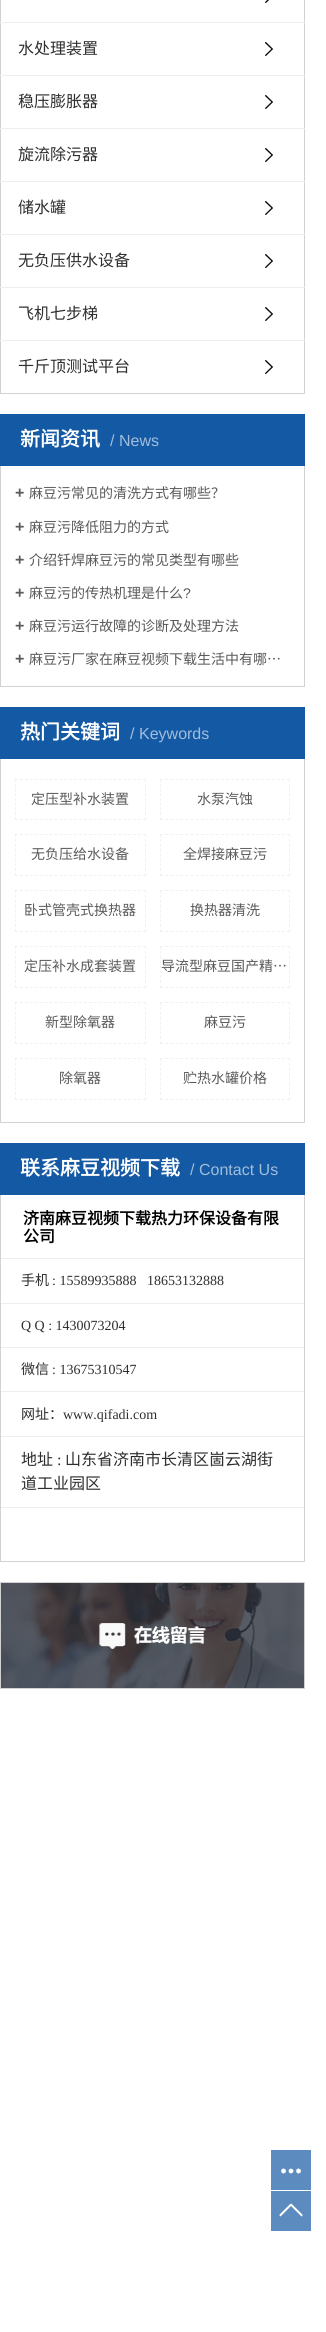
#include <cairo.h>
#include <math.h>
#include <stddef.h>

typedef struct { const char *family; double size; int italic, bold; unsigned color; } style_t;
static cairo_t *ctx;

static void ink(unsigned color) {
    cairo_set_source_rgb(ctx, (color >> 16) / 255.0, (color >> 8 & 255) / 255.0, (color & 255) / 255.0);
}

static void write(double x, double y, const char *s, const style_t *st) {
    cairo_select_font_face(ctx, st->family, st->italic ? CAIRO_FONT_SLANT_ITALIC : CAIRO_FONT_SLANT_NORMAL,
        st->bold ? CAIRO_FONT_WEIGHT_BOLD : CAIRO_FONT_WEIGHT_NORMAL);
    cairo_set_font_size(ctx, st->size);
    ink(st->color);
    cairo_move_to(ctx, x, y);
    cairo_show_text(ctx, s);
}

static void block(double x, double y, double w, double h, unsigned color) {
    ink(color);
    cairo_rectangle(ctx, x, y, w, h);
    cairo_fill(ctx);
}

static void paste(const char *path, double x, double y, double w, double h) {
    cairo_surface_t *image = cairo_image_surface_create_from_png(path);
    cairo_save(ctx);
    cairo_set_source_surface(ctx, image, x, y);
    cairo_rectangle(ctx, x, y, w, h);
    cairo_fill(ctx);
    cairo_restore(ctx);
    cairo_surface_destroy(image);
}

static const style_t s1 = {"Noto Sans CJK SC", 16, 0, 0, 0x2e2e2e};
static const style_t s2 = {"Noto Sans CJK SC", 20, 0, 1, 0xffffff};
static const style_t s3 = {"Liberation Sans", 16, 0, 0, 0xa1bddb};
static const style_t s4 = {"Liberation Sans", 16, 0, 1, 0x5a5a5a};
static const style_t s5 = {"Noto Sans CJK SC", 14, 0, 0, 0x5a5a5a};
static const style_t s6 = {"Liberation Sans", 14, 0, 0, 0x5a5a5a};
static const style_t s7 = {"Noto Sans CJK SC", 16, 0, 1, 0x000000};
static const style_t s8 = {"Noto Sans CJK SC", 14, 0, 0, 0x2e2e2e};
static const style_t s9 = {"Liberation Serif", 14, 0, 0, 0x2e2e2e};
static const style_t s10 = {"Liberation Serif", 16, 0, 0, 0x2e2e2e};

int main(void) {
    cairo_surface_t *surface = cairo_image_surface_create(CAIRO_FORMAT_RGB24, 326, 2332);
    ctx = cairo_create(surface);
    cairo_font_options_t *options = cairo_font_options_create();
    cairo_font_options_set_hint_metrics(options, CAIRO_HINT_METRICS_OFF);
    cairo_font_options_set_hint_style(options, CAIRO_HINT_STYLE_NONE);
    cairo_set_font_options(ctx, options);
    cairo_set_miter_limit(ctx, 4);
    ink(0xffffff);
    cairo_paint(ctx);
    block(304, 0, 1, 394, 0xd2d2d2);
    block(0, 393, 305, 1, 0xd2d2d2);
    block(0, 0, 1, 394, 0xd2d2d2);
    block(0, 22, 305, 1, 0xeeeeee);
    paste("pic1.png", 265, 0, 4, 3);
    block(0, 75, 305, 1, 0xeeeeee);
    write(18, 54, "水处理装置", &s1);
    paste("pic2.png", 265, 42, 8, 14);
    block(0, 128, 305, 1, 0xeeeeee);
    write(18, 107, "稳压膨胀器", &s1);
    paste("pic2.png", 265, 95, 8, 14);
    block(0, 181, 305, 1, 0xeeeeee);
    write(18, 160, "旋流除污器", &s1);
    paste("pic2.png", 265, 148, 8, 14);
    block(0, 234, 305, 1, 0xeeeeee);
    write(18, 213, "储水罐", &s1);
    paste("pic2.png", 265, 201, 8, 14);
    block(0, 287, 305, 1, 0xeeeeee);
    write(18, 266, "无负压供水设备", &s1);
    paste("pic2.png", 265, 254, 8, 14);
    block(0, 340, 305, 1, 0xeeeeee);
    write(18, 319, "飞机七步梯", &s1);
    paste("pic2.png", 265, 307, 8, 14);
    write(18, 372, "千斤顶测试平台", &s1);
    paste("pic2.png", 265, 360, 8, 14);
    block(0, 414, 305, 52, 0x1459a4);
    write(20, 446, "新闻资讯", &s2);
    write(110, 446, "/", &s3);
    write(119, 446, "News", &s3);
    block(304, 466, 1, 221, 0xd2d2d2);
    block(0, 686, 305, 1, 0xd2d2d2);
    block(0, 466, 1, 221, 0xd2d2d2);
    write(15, 498, "+", &s4);
    write(29, 498, "麻豆污常见的清洗方式有哪些？", &s5);
    write(15, 532, "+", &s4);
    write(29, 532, "麻豆污降低阻力的方式", &s5);
    write(15, 565, "+", &s4);
    write(29, 565, "介绍钎焊麻豆污的常见类型有哪些", &s5);
    write(15, 598, "+", &s4);
    write(29, 598, "麻豆污的传热机理是什么", &s5);
    write(183, 598, "?", &s6);
    write(15, 631, "+", &s4);
    write(29, 631, "麻豆污运行故障的诊断及处理方法", &s5);
    write(15, 664, "+", &s4);
    write(29, 664, "麻豆污厂家在麻豆视频下载生活中有哪…", &s5);
    block(0, 707, 305, 52, 0x1459a4);
    write(20, 739, "热门关键词", &s2);
    write(130, 739, "/", &s3);
    write(139, 739, "Keywords", &s3);
    block(304, 759, 1, 364, 0xd2d2d2);
    block(0, 1122, 305, 1, 0xd2d2d2);
    block(0, 759, 1, 364, 0xd2d2d2);
    cairo_new_path(ctx);
    cairo_move_to(ctx, 15, 779.5);
    cairo_line_to(ctx, 146, 779.5);
    ink(0xf1f1f1);
    cairo_set_line_width(ctx, 1);
    cairo_set_dash(ctx, (double[]){3, 1.92}, 2, 0);
    cairo_stroke(ctx);
    cairo_new_path(ctx);
    cairo_move_to(ctx, 145.5, 779);
    cairo_line_to(ctx, 145.5, 820);
    cairo_set_dash(ctx, (double[]){3, 1.75}, 2, 0);
    cairo_stroke(ctx);
    cairo_new_path(ctx);
    cairo_move_to(ctx, 15, 819.5);
    cairo_line_to(ctx, 146, 819.5);
    cairo_set_dash(ctx, (double[]){3, 1.92}, 2, 0);
    cairo_stroke(ctx);
    cairo_new_path(ctx);
    cairo_move_to(ctx, 15.5, 779);
    cairo_line_to(ctx, 15.5, 820);
    cairo_set_dash(ctx, (double[]){3, 1.75}, 2, 0);
    cairo_stroke(ctx);
    write(31, 804, "定压型补水装置", &s5);
    cairo_new_path(ctx);
    cairo_move_to(ctx, 160, 779.5);
    cairo_line_to(ctx, 290, 779.5);
    ink(0xf1f1f1);
    cairo_set_dash(ctx, (double[]){3, 2.08}, 2, 0);
    cairo_stroke(ctx);
    cairo_new_path(ctx);
    cairo_move_to(ctx, 289.5, 779);
    cairo_line_to(ctx, 289.5, 820);
    cairo_set_dash(ctx, (double[]){3, 1.75}, 2, 0);
    cairo_stroke(ctx);
    cairo_new_path(ctx);
    cairo_move_to(ctx, 160, 819.5);
    cairo_line_to(ctx, 290, 819.5);
    cairo_set_dash(ctx, (double[]){3, 2.08}, 2, 0);
    cairo_stroke(ctx);
    cairo_new_path(ctx);
    cairo_move_to(ctx, 160.5, 779);
    cairo_line_to(ctx, 160.5, 820);
    cairo_set_dash(ctx, (double[]){3, 1.75}, 2, 0);
    cairo_stroke(ctx);
    write(197, 804, "水泵汽蚀", &s5);
    cairo_new_path(ctx);
    cairo_move_to(ctx, 15, 834.5);
    cairo_line_to(ctx, 146, 834.5);
    ink(0xf1f1f1);
    cairo_set_dash(ctx, (double[]){3, 1.92}, 2, 0);
    cairo_stroke(ctx);
    cairo_new_path(ctx);
    cairo_move_to(ctx, 145.5, 834);
    cairo_line_to(ctx, 145.5, 876);
    cairo_set_dash(ctx, (double[]){3, 1.88}, 2, 0);
    cairo_stroke(ctx);
    cairo_new_path(ctx);
    cairo_move_to(ctx, 15, 875.5);
    cairo_line_to(ctx, 146, 875.5);
    cairo_set_dash(ctx, (double[]){3, 1.92}, 2, 0);
    cairo_stroke(ctx);
    cairo_new_path(ctx);
    cairo_move_to(ctx, 15.5, 834);
    cairo_line_to(ctx, 15.5, 876);
    cairo_set_dash(ctx, (double[]){3, 1.88}, 2, 0);
    cairo_stroke(ctx);
    write(31, 859, "无负压给水设备", &s5);
    cairo_new_path(ctx);
    cairo_move_to(ctx, 160, 834.5);
    cairo_line_to(ctx, 290, 834.5);
    ink(0xf1f1f1);
    cairo_set_dash(ctx, (double[]){3, 2.08}, 2, 0);
    cairo_stroke(ctx);
    cairo_new_path(ctx);
    cairo_move_to(ctx, 289.5, 834);
    cairo_line_to(ctx, 289.5, 876);
    cairo_set_dash(ctx, (double[]){3, 1.88}, 2, 0);
    cairo_stroke(ctx);
    cairo_new_path(ctx);
    cairo_move_to(ctx, 160, 875.5);
    cairo_line_to(ctx, 290, 875.5);
    cairo_set_dash(ctx, (double[]){3, 2.08}, 2, 0);
    cairo_stroke(ctx);
    cairo_new_path(ctx);
    cairo_move_to(ctx, 160.5, 834);
    cairo_line_to(ctx, 160.5, 876);
    cairo_set_dash(ctx, (double[]){3, 1.88}, 2, 0);
    cairo_stroke(ctx);
    write(183, 859, "全焊接麻豆污", &s5);
    cairo_new_path(ctx);
    cairo_move_to(ctx, 15, 890.5);
    cairo_line_to(ctx, 146, 890.5);
    ink(0xf1f1f1);
    cairo_set_dash(ctx, (double[]){3, 1.92}, 2, 0);
    cairo_stroke(ctx);
    cairo_new_path(ctx);
    cairo_move_to(ctx, 145.5, 890);
    cairo_line_to(ctx, 145.5, 932);
    cairo_set_dash(ctx, (double[]){3, 1.88}, 2, 0);
    cairo_stroke(ctx);
    cairo_new_path(ctx);
    cairo_move_to(ctx, 15, 931.5);
    cairo_line_to(ctx, 146, 931.5);
    cairo_set_dash(ctx, (double[]){3, 1.92}, 2, 0);
    cairo_stroke(ctx);
    cairo_new_path(ctx);
    cairo_move_to(ctx, 15.5, 890);
    cairo_line_to(ctx, 15.5, 932);
    cairo_set_dash(ctx, (double[]){3, 1.88}, 2, 0);
    cairo_stroke(ctx);
    write(24, 915, "卧式管壳式换热器", &s5);
    cairo_new_path(ctx);
    cairo_move_to(ctx, 160, 890.5);
    cairo_line_to(ctx, 290, 890.5);
    ink(0xf1f1f1);
    cairo_set_dash(ctx, (double[]){3, 2.08}, 2, 0);
    cairo_stroke(ctx);
    cairo_new_path(ctx);
    cairo_move_to(ctx, 289.5, 890);
    cairo_line_to(ctx, 289.5, 932);
    cairo_set_dash(ctx, (double[]){3, 1.88}, 2, 0);
    cairo_stroke(ctx);
    cairo_new_path(ctx);
    cairo_move_to(ctx, 160, 931.5);
    cairo_line_to(ctx, 290, 931.5);
    cairo_set_dash(ctx, (double[]){3, 2.08}, 2, 0);
    cairo_stroke(ctx);
    cairo_new_path(ctx);
    cairo_move_to(ctx, 160.5, 890);
    cairo_line_to(ctx, 160.5, 932);
    cairo_set_dash(ctx, (double[]){3, 1.88}, 2, 0);
    cairo_stroke(ctx);
    write(190, 915, "换热器清洗", &s5);
    cairo_new_path(ctx);
    cairo_move_to(ctx, 15, 946.5);
    cairo_line_to(ctx, 146, 946.5);
    ink(0xf1f1f1);
    cairo_set_dash(ctx, (double[]){3, 1.92}, 2, 0);
    cairo_stroke(ctx);
    cairo_new_path(ctx);
    cairo_move_to(ctx, 145.5, 946);
    cairo_line_to(ctx, 145.5, 988);
    cairo_set_dash(ctx, (double[]){3, 1.88}, 2, 0);
    cairo_stroke(ctx);
    cairo_new_path(ctx);
    cairo_move_to(ctx, 15, 987.5);
    cairo_line_to(ctx, 146, 987.5);
    cairo_set_dash(ctx, (double[]){3, 1.92}, 2, 0);
    cairo_stroke(ctx);
    cairo_new_path(ctx);
    cairo_move_to(ctx, 15.5, 946);
    cairo_line_to(ctx, 15.5, 988);
    cairo_set_dash(ctx, (double[]){3, 1.88}, 2, 0);
    cairo_stroke(ctx);
    write(24, 971, "定压补水成套装置", &s5);
    cairo_new_path(ctx);
    cairo_move_to(ctx, 160, 946.5);
    cairo_line_to(ctx, 290, 946.5);
    ink(0xf1f1f1);
    cairo_set_dash(ctx, (double[]){3, 2.08}, 2, 0);
    cairo_stroke(ctx);
    cairo_new_path(ctx);
    cairo_move_to(ctx, 289.5, 946);
    cairo_line_to(ctx, 289.5, 988);
    cairo_set_dash(ctx, (double[]){3, 1.88}, 2, 0);
    cairo_stroke(ctx);
    cairo_new_path(ctx);
    cairo_move_to(ctx, 160, 987.5);
    cairo_line_to(ctx, 290, 987.5);
    cairo_set_dash(ctx, (double[]){3, 2.08}, 2, 0);
    cairo_stroke(ctx);
    cairo_new_path(ctx);
    cairo_move_to(ctx, 160.5, 946);
    cairo_line_to(ctx, 160.5, 988);
    cairo_set_dash(ctx, (double[]){3, 1.88}, 2, 0);
    cairo_stroke(ctx);
    write(161, 971, "导流型麻豆国产精…", &s5);
    cairo_new_path(ctx);
    cairo_move_to(ctx, 15, 1002.5);
    cairo_line_to(ctx, 146, 1002.5);
    ink(0xf1f1f1);
    cairo_set_dash(ctx, (double[]){3, 1.92}, 2, 0);
    cairo_stroke(ctx);
    cairo_new_path(ctx);
    cairo_move_to(ctx, 145.5, 1002);
    cairo_line_to(ctx, 145.5, 1044);
    cairo_set_dash(ctx, (double[]){3, 1.88}, 2, 0);
    cairo_stroke(ctx);
    cairo_new_path(ctx);
    cairo_move_to(ctx, 15, 1043.5);
    cairo_line_to(ctx, 146, 1043.5);
    cairo_set_dash(ctx, (double[]){3, 1.92}, 2, 0);
    cairo_stroke(ctx);
    cairo_new_path(ctx);
    cairo_move_to(ctx, 15.5, 1002);
    cairo_line_to(ctx, 15.5, 1044);
    cairo_set_dash(ctx, (double[]){3, 1.88}, 2, 0);
    cairo_stroke(ctx);
    write(45, 1027, "新型除氧器", &s5);
    cairo_new_path(ctx);
    cairo_move_to(ctx, 160, 1002.5);
    cairo_line_to(ctx, 290, 1002.5);
    ink(0xf1f1f1);
    cairo_set_dash(ctx, (double[]){3, 2.08}, 2, 0);
    cairo_stroke(ctx);
    cairo_new_path(ctx);
    cairo_move_to(ctx, 289.5, 1002);
    cairo_line_to(ctx, 289.5, 1044);
    cairo_set_dash(ctx, (double[]){3, 1.88}, 2, 0);
    cairo_stroke(ctx);
    cairo_new_path(ctx);
    cairo_move_to(ctx, 160, 1043.5);
    cairo_line_to(ctx, 290, 1043.5);
    cairo_set_dash(ctx, (double[]){3, 2.08}, 2, 0);
    cairo_stroke(ctx);
    cairo_new_path(ctx);
    cairo_move_to(ctx, 160.5, 1002);
    cairo_line_to(ctx, 160.5, 1044);
    cairo_set_dash(ctx, (double[]){3, 1.88}, 2, 0);
    cairo_stroke(ctx);
    write(204, 1027, "麻豆污", &s5);
    cairo_new_path(ctx);
    cairo_move_to(ctx, 15, 1058.5);
    cairo_line_to(ctx, 146, 1058.5);
    ink(0xf1f1f1);
    cairo_set_dash(ctx, (double[]){3, 1.92}, 2, 0);
    cairo_stroke(ctx);
    cairo_new_path(ctx);
    cairo_move_to(ctx, 145.5, 1058);
    cairo_line_to(ctx, 145.5, 1100);
    cairo_set_dash(ctx, (double[]){3, 1.88}, 2, 0);
    cairo_stroke(ctx);
    cairo_new_path(ctx);
    cairo_move_to(ctx, 15, 1099.5);
    cairo_line_to(ctx, 146, 1099.5);
    cairo_set_dash(ctx, (double[]){3, 1.92}, 2, 0);
    cairo_stroke(ctx);
    cairo_new_path(ctx);
    cairo_move_to(ctx, 15.5, 1058);
    cairo_line_to(ctx, 15.5, 1100);
    cairo_set_dash(ctx, (double[]){3, 1.88}, 2, 0);
    cairo_stroke(ctx);
    write(59, 1083, "除氧器", &s5);
    cairo_new_path(ctx);
    cairo_move_to(ctx, 160, 1058.5);
    cairo_line_to(ctx, 290, 1058.5);
    ink(0xf1f1f1);
    cairo_set_dash(ctx, (double[]){3, 2.08}, 2, 0);
    cairo_stroke(ctx);
    cairo_new_path(ctx);
    cairo_move_to(ctx, 289.5, 1058);
    cairo_line_to(ctx, 289.5, 1100);
    cairo_set_dash(ctx, (double[]){3, 1.88}, 2, 0);
    cairo_stroke(ctx);
    cairo_new_path(ctx);
    cairo_move_to(ctx, 160, 1099.5);
    cairo_line_to(ctx, 290, 1099.5);
    cairo_set_dash(ctx, (double[]){3, 2.08}, 2, 0);
    cairo_stroke(ctx);
    cairo_new_path(ctx);
    cairo_move_to(ctx, 160.5, 1058);
    cairo_line_to(ctx, 160.5, 1100);
    cairo_set_dash(ctx, (double[]){3, 1.88}, 2, 0);
    cairo_stroke(ctx);
    write(183, 1083, "贮热水罐价格", &s5);
    block(0, 1143, 305, 52, 0x1459a4);
    write(20, 1175, "联系麻豆视频下载", &s2);
    write(190, 1175, "/", &s3);
    write(199, 1175, "Contact Us", &s3);
    block(304, 1195, 1, 367, 0xd2d2d2);
    block(0, 1561, 305, 1, 0xd2d2d2);
    block(0, 1195, 1, 367, 0xd2d2d2);
    write(23, 1224, "济南麻豆视频下载热力环保设备有限", &s7);
    write(23, 1242, "公司", &s7);
    block(1, 1258, 303, 1, 0xeeeeee);
    write(21, 1285, "手机", &s8);
    write(52, 1285, ": 15589935888   18653132888", &s9);
    block(1, 1303, 303, 1, 0xeeeeee);
    write(21, 1330, "Q Q : 1430073204", &s9);
    block(1, 1347, 303, 1, 0xeeeeee);
    write(21, 1374, "微信", &s8);
    write(52, 1374, ": 13675310547", &s9);
    block(1, 1391, 303, 1, 0xeeeeee);
    write(21, 1419, "网址：", &s8);
    write(63, 1419, "www.qifadi.com", &s9);
    block(1, 1436, 303, 1, 0xeeeeee);
    write(21, 1465, "地址", &s1);
    write(57, 1465, ":", &s10);
    write(65, 1465, "山东省济南市长清区崮云湖街", &s1);
    write(21, 1489, "道工业园区", &s1);
    block(1, 1507, 303, 1, 0xeeeeee);
    cairo_rectangle(ctx, 0.5, 1582.5, 304, 106);
    ink(0xd2d2d2);
    cairo_set_dash(ctx, NULL, 0, 0);
    cairo_stroke(ctx);
    paste("pic3.png", 1, 1583, 303, 105);
    block(271, 2150, 40, 40, 0x5b8bbf);
    paste("pic4.png", 281, 2168, 20, 6);
    block(271, 2191, 40, 40, 0x5b8bbf);
    paste("pic5.png", 279, 2203, 24, 14);
    cairo_surface_write_to_png(surface, "screenshot.png");
    cairo_font_options_destroy(options);
    cairo_destroy(ctx);
    cairo_surface_destroy(surface);
    return 0;
}
